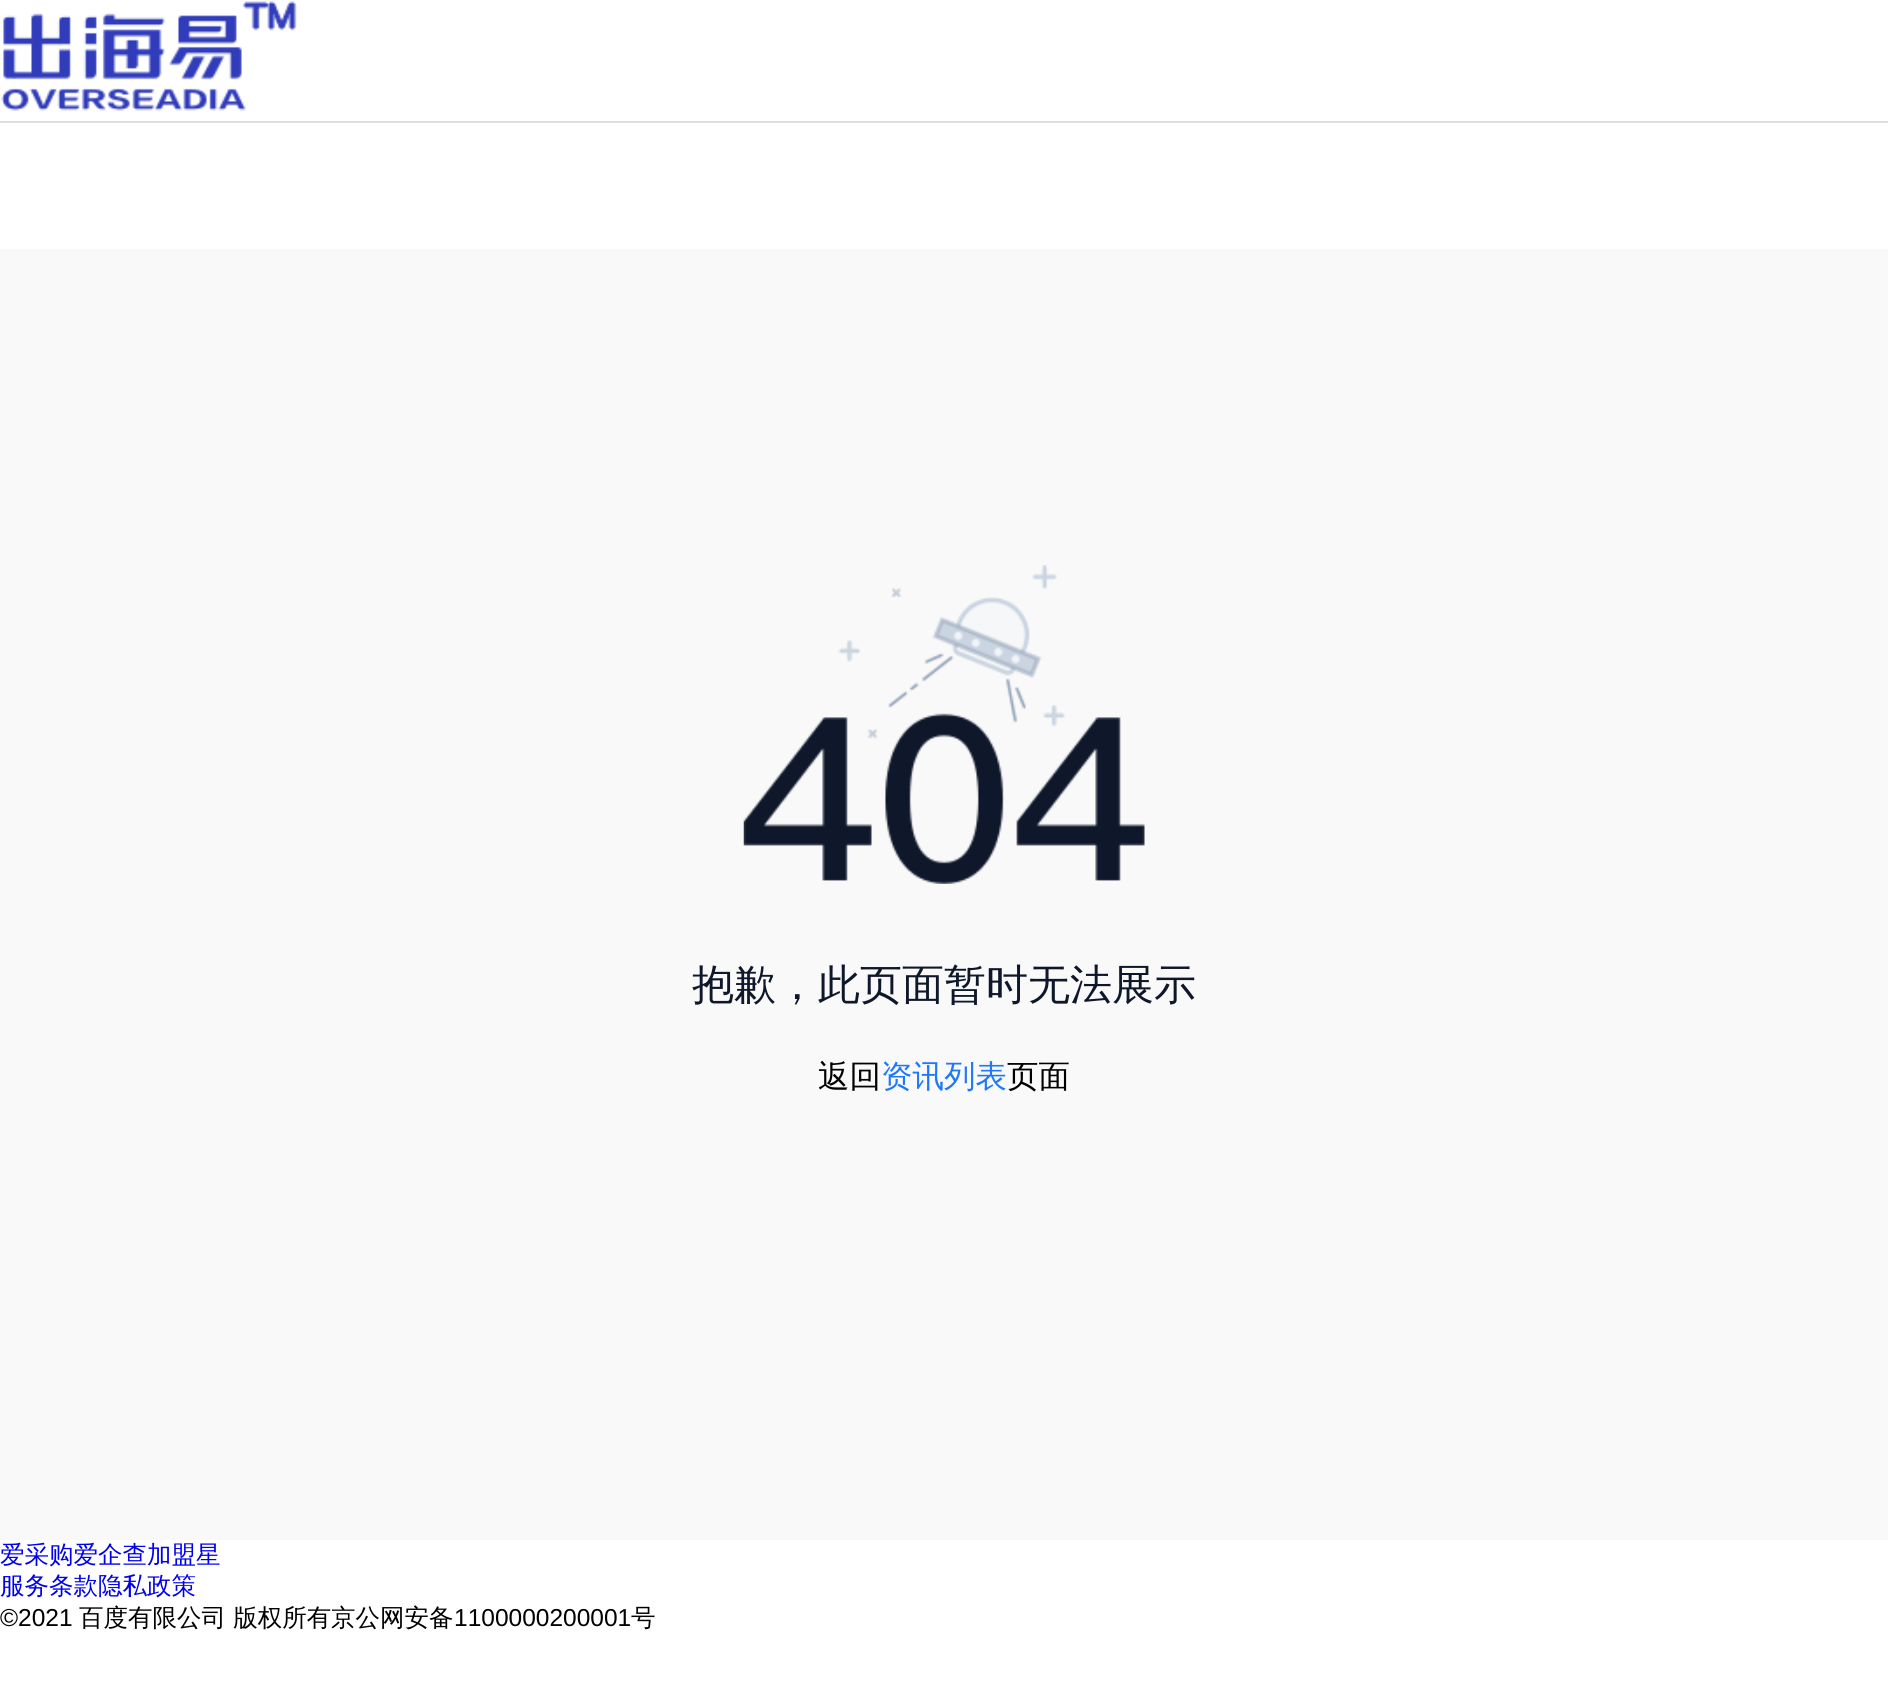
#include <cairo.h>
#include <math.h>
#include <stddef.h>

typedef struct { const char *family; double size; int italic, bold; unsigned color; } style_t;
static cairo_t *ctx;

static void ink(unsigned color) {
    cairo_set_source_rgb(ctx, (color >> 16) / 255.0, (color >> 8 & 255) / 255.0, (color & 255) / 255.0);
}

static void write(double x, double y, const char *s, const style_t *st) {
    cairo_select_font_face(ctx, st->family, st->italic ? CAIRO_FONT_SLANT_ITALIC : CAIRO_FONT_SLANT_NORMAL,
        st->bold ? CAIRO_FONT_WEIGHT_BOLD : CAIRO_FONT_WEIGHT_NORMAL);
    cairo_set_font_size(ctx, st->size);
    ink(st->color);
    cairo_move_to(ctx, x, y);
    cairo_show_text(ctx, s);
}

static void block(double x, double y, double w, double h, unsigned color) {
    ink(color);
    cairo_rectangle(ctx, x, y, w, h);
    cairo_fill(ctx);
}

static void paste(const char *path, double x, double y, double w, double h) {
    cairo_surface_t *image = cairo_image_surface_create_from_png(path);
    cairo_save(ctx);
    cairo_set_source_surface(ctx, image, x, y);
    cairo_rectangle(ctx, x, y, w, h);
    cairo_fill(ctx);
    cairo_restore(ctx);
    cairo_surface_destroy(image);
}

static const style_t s1 = {"WenQuanYi Zen Hei Medium", 42, 0, 0, 0x0f172a};
static const style_t s2 = {"WenQuanYi Zen Hei Medium", 31.5, 0, 0, 0x000000};
static const style_t s3 = {"WenQuanYi Zen Hei Medium", 31.5, 0, 0, 0x1f79f7};
static const style_t s4 = {"WenQuanYi Zen Hei Medium", 24.5, 0, 0, 0x0000ee};
static const style_t s5 = {"Liberation Sans", 24.5, 0, 0, 0x000000};
static const style_t s6 = {"WenQuanYi Zen Hei Medium", 24.5, 0, 0, 0x000000};

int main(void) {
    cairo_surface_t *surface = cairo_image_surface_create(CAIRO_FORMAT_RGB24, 1888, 1691);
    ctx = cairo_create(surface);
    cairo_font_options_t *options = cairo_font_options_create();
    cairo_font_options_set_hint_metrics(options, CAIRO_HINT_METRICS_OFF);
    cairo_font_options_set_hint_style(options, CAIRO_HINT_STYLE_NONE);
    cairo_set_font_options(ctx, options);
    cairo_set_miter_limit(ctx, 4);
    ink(0xffffff);
    cairo_paint(ctx);
    paste("pic1.png", 1, 1, 296, 110);
    block(0, 121, 1888, 2, 0xdcdfe6);
    block(0, 249, 1888, 1291, 0xf9f9f9);
    paste("pic2.png", 743, 565, 402, 319);
    write(692, 999, "抱歉，此页面暂时无法展示", &s1);
    write(818, 1087, "返回", &s2);
    write(881, 1087, "资讯列表", &s3);
    write(1007, 1087, "页面", &s2);
    write(0, 1563, "爱采购爱企查加盟星", &s4);
    write(0, 1594, "服务条款隐私政策", &s4);
    write(0, 1626, "©2021", &s5);
    write(79, 1626, "百度有限公司 版权所有", &s6);
    write(331, 1626, "京公网安备", &s6);
    write(454, 1626, "1100000200001", &s5);
    write(631, 1626, "号", &s6);
    cairo_surface_write_to_png(surface, "screenshot.png");
    cairo_font_options_destroy(options);
    cairo_destroy(ctx);
    cairo_surface_destroy(surface);
    return 0;
}
